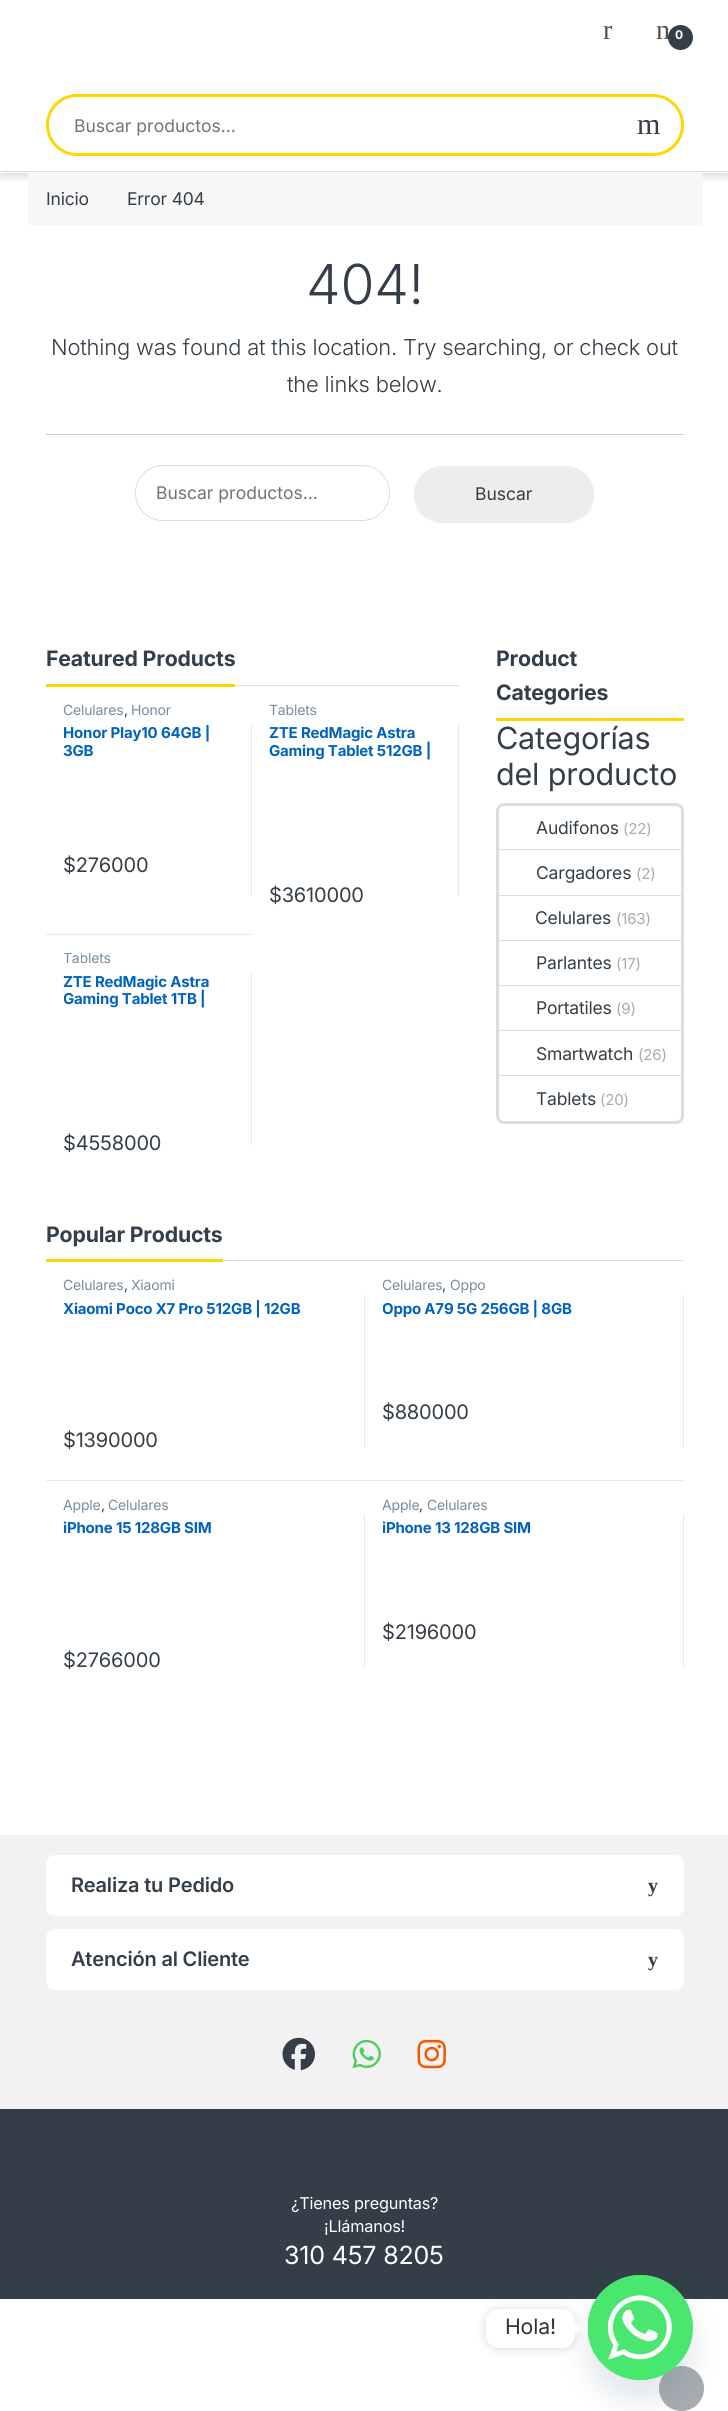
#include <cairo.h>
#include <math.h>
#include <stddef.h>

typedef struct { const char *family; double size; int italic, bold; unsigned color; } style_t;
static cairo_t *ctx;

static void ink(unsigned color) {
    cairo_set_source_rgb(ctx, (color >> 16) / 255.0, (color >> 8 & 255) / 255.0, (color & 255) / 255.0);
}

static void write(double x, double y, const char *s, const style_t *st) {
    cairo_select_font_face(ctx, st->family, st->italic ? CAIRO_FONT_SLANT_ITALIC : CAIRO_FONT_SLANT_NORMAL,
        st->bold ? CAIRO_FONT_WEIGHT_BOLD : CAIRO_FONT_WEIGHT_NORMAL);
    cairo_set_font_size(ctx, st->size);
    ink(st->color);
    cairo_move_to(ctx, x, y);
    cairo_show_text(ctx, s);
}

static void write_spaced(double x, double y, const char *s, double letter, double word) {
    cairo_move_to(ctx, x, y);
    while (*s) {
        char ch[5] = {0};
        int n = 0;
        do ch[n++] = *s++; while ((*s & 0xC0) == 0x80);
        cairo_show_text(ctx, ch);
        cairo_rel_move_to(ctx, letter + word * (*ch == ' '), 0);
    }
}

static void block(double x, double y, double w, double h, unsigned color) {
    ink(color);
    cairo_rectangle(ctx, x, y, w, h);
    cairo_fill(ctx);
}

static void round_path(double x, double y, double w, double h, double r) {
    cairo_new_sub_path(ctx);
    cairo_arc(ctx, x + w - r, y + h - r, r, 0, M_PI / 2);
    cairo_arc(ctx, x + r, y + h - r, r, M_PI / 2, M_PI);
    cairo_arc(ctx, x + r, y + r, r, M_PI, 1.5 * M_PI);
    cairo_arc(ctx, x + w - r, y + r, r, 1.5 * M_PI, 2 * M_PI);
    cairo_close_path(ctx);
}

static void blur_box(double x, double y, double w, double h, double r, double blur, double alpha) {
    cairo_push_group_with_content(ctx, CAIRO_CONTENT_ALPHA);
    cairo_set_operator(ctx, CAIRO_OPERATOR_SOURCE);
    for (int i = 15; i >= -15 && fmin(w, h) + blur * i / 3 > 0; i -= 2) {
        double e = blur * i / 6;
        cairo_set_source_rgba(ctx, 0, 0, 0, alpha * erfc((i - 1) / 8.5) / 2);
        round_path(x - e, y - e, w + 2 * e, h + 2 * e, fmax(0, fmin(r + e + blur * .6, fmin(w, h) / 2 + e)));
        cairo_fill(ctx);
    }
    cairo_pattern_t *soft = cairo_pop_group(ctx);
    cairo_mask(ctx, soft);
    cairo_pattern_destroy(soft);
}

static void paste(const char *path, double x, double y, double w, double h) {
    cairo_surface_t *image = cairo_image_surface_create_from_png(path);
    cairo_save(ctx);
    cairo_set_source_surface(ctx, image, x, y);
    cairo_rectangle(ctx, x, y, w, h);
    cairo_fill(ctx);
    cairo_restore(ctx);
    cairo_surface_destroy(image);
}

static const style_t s1 = {"Inter", 17.5, 0, 0, 0x6c757d};
static const style_t s2 = {"Liberation Serif", 30, 0, 0, 0x333e48};
static const style_t s3 = {"Inter", 17.5, 0, 0, 0x333e48};

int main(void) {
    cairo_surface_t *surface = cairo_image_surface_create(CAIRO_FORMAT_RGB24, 728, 2411);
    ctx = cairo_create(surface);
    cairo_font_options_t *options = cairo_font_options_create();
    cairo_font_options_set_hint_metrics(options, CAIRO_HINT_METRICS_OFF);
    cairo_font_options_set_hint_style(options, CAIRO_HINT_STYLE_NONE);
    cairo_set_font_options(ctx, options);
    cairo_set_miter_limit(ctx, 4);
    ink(0xffffff);
    cairo_paint(ctx);
    cairo_save(ctx);
    cairo_set_fill_rule(ctx, CAIRO_FILL_RULE_EVEN_ODD);
    cairo_new_path(ctx);
    cairo_move_to(ctx, 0, 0);
    cairo_line_to(ctx, 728, 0);
    cairo_line_to(ctx, 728, 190);
    cairo_line_to(ctx, 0, 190);
    cairo_close_path(ctx);
    cairo_move_to(ctx, 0, -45);
    cairo_line_to(ctx, 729, -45);
    cairo_line_to(ctx, 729, 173);
    cairo_line_to(ctx, 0, 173);
    cairo_close_path(ctx);
    cairo_clip(ctx);
    ink(0x000000);
    blur_box(0, -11, 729, 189, 0, 3.5, 0.12);
    cairo_restore(ctx);
    block(0, 171, 728, 1, 0xdddddd);
    cairo_select_font_face(ctx, "Liberation Serif", CAIRO_FONT_SLANT_NORMAL, CAIRO_FONT_WEIGHT_NORMAL);
    cairo_set_font_size(ctx, 28);
    ink(0x515151);
    write_spaced(603, 39, "r", -0.18, 0);
    write_spaced(656, 39, "n", -0.18, 0);
    ink(0x333e48);
    cairo_new_path(ctx);
    cairo_arc(ctx, 680.5, 37.5, 12.5, 0, 2 * M_PI);
    cairo_fill(ctx);
    cairo_select_font_face(ctx, "Inter", CAIRO_FONT_SLANT_NORMAL, CAIRO_FONT_WEIGHT_BOLD);
    cairo_set_font_size(ctx, 12);
    ink(0xffffff);
    write_spaced(675, 39, "0", -0.18, 0);
    round_path(47.5, 95.5, 635, 59, 29.5);
    ink(0xfed700);
    cairo_set_line_width(ctx, 3);
    cairo_stroke(ctx);
    write(74, 132, "Buscar productos…", &s1);
    write(637, 134, "m", &s2);
    block(28, 173, 675, 52, 0xf7f7f7);
    cairo_select_font_face(ctx, "Inter", CAIRO_FONT_SLANT_NORMAL, CAIRO_FONT_WEIGHT_NORMAL);
    cairo_set_font_size(ctx, 17.5);
    ink(0x333e48);
    write_spaced(46, 205, "Inicio", -0.18, 0);
    write_spaced(127, 205, "Error 404", -0.18, 0);
    cairo_select_font_face(ctx, "Inter Light", CAIRO_FONT_SLANT_NORMAL, CAIRO_FONT_WEIGHT_NORMAL);
    cairo_set_font_size(ctx, 55);
    write_spaced(306, 304, "404!", -0.18, 0);
    cairo_set_font_size(ctx, 21.9);
    write_spaced(51, 355, "Nothing was found at this location. Try searching, or check out", -0.18, 0);
    write_spaced(287, 392, "the links below.", -0.18, 0);
    block(46, 434, 638, 1, 0xcccfd1);
    round_path(135.5, 465.5, 254, 55, 27.5);
    ink(0xdddddd);
    cairo_set_line_width(ctx, 1);
    cairo_stroke(ctx);
    write(156, 499, "Buscar productos…", &s1);
    ink(0xefecec);
    round_path(414.5, 466.5, 179, 56, 27.5);
    cairo_fill_preserve(ctx);
    cairo_stroke(ctx);
    write(475, 500, "Buscar", &s3);
    block(235, 685, 224, 1, 0xdddddd);
    cairo_select_font_face(ctx, "Inter", CAIRO_FONT_SLANT_NORMAL, CAIRO_FONT_WEIGHT_BOLD);
    cairo_set_font_size(ctx, 21.25);
    ink(0x333e48);
    write_spaced(46, 666, "Featured Products", -0.18, 0);
    block(46, 684, 189, 3, 0xfed700);
    block(46, 934, 207, 1, 0xeaeaea);
    cairo_select_font_face(ctx, "Inter", CAIRO_FONT_SLANT_NORMAL, CAIRO_FONT_WEIGHT_NORMAL);
    cairo_set_font_size(ctx, 14);
    ink(0x768b9e);
    write_spaced(63, 715, "Celulares", -0.18, 0);
    ink(0x333e48);
    write_spaced(124, 715, ",", -0.18, 0);
    ink(0x768b9e);
    write_spaced(131, 715, "Honor", -0.18, 0);
    cairo_save(ctx);
    cairo_rectangle(ctx, 64, 725, 171, 35);
    cairo_clip(ctx);
    cairo_select_font_face(ctx, "Inter", CAIRO_FONT_SLANT_NORMAL, CAIRO_FONT_WEIGHT_BOLD);
    cairo_set_font_size(ctx, 15);
    ink(0x0062bd);
    write_spaced(63, 738, "Honor Play10 64GB |", -0.18, 0);
    cairo_restore(ctx);
    cairo_select_font_face(ctx, "Inter", CAIRO_FONT_SLANT_NORMAL, CAIRO_FONT_WEIGHT_BOLD);
    cairo_set_font_size(ctx, 15);
    ink(0x0062bd);
    write_spaced(63, 756, "3GB", -0.18, 0);
    cairo_select_font_face(ctx, "Inter", CAIRO_FONT_SLANT_NORMAL, CAIRO_FONT_WEIGHT_NORMAL);
    cairo_set_font_size(ctx, 20);
    ink(0x333e48);
    write_spaced(63, 872, "$276000", -0.18, 0);
    block(251, 724, 1, 172, 0xeaeaea);
    cairo_set_font_size(ctx, 14);
    ink(0x768b9e);
    write_spaced(269, 715, "Tablets", -0.18, 0);
    cairo_select_font_face(ctx, "Inter", CAIRO_FONT_SLANT_NORMAL, CAIRO_FONT_WEIGHT_BOLD);
    cairo_set_font_size(ctx, 15);
    ink(0x0062bd);
    write_spaced(269, 738, "ZTE RedMagic Astra", -0.18, 0);
    write_spaced(269, 756, "Gaming Tablet 512GB |", -0.18, 0);
    cairo_select_font_face(ctx, "Inter", CAIRO_FONT_SLANT_NORMAL, CAIRO_FONT_WEIGHT_NORMAL);
    cairo_set_font_size(ctx, 20);
    ink(0x333e48);
    write_spaced(269, 902, "$3610000", -0.18, 0);
    block(458, 723, 1, 173, 0xeaeaea);
    cairo_save(ctx);
    cairo_rectangle(ctx, 64, 953, 171, 15);
    cairo_clip(ctx);
    cairo_set_font_size(ctx, 14);
    ink(0x768b9e);
    write_spaced(63, 963, "Tablets", -0.18, 0);
    cairo_restore(ctx);
    cairo_select_font_face(ctx, "Inter", CAIRO_FONT_SLANT_NORMAL, CAIRO_FONT_WEIGHT_BOLD);
    cairo_set_font_size(ctx, 15);
    ink(0x0062bd);
    write_spaced(63, 987, "ZTE RedMagic Astra", -0.18, 0);
    cairo_save(ctx);
    cairo_rectangle(ctx, 64, 973, 171, 35);
    cairo_clip(ctx);
    write_spaced(63, 1004, "Gaming Tablet 1TB |", -0.18, 0);
    cairo_restore(ctx);
    cairo_select_font_face(ctx, "Inter", CAIRO_FONT_SLANT_NORMAL, CAIRO_FONT_WEIGHT_NORMAL);
    cairo_set_font_size(ctx, 20);
    ink(0x333e48);
    write_spaced(63, 1150, "$4558000", -0.18, 0);
    block(251, 971, 1, 174, 0xeaeaea);
    cairo_select_font_face(ctx, "Inter", CAIRO_FONT_SLANT_NORMAL, CAIRO_FONT_WEIGHT_BOLD);
    cairo_set_font_size(ctx, 21.25);
    ink(0x333e48);
    write_spaced(496, 666, "Product", -0.18, 0);
    write_spaced(496, 700, "Categories", -0.18, 0);
    block(496, 718, 188, 3, 0xfed700);
    cairo_select_font_face(ctx, "Inter", CAIRO_FONT_SLANT_NORMAL, CAIRO_FONT_WEIGHT_NORMAL);
    cairo_set_font_size(ctx, 30.5);
    ink(0x333e48);
    write_spaced(496, 749, "Categorías", -0.18, 0);
    write_spaced(496, 785, "del producto", -0.18, 0);
    round_path(497.5, 804.5, 185, 318, 6.5);
    ink(0xdddddd);
    cairo_set_line_width(ctx, 3);
    cairo_stroke(ctx);
    cairo_set_font_size(ctx, 17.5);
    ink(0x333e48);
    write_spaced(536, 834, "Audifonos", -0.18, 0);
    cairo_set_font_size(ctx, 15);
    ink(0xaaaaaa);
    write_spaced(623, 834, "(22)", -0.18, 0);
    block(499, 849, 182, 1, 0xdddddd);
    cairo_set_font_size(ctx, 17.5);
    ink(0x333e48);
    write_spaced(536, 879, "Cargadores", -0.18, 0);
    cairo_set_font_size(ctx, 15);
    ink(0xaaaaaa);
    write_spaced(636, 879, "(2)", -0.18, 0);
    block(499, 895, 182, 1, 0xdddddd);
    cairo_set_font_size(ctx, 17.5);
    ink(0x333e48);
    write_spaced(535, 924, "Celulares", -0.18, 0);
    cairo_set_font_size(ctx, 15);
    ink(0xaaaaaa);
    write_spaced(616, 924, "(163)", -0.18, 0);
    block(499, 940, 182, 1, 0xdddddd);
    cairo_set_font_size(ctx, 17.5);
    ink(0x333e48);
    write_spaced(536, 969, "Parlantes", -0.18, 0);
    cairo_set_font_size(ctx, 15);
    ink(0xaaaaaa);
    write_spaced(616, 969, "(17)", -0.18, 0);
    block(499, 985, 182, 1, 0xdddddd);
    cairo_set_font_size(ctx, 17.5);
    ink(0x333e48);
    write_spaced(536, 1014, "Portatiles", -0.18, 0);
    cairo_set_font_size(ctx, 15);
    ink(0xaaaaaa);
    write_spaced(616, 1014, "(9)", -0.18, 0);
    block(499, 1030, 182, 1, 0xdddddd);
    cairo_set_font_size(ctx, 17.5);
    ink(0x333e48);
    write_spaced(536, 1060, "Smartwatch", -0.18, 0);
    cairo_set_font_size(ctx, 15);
    ink(0xaaaaaa);
    write_spaced(638, 1060, "(26)", -0.18, 0);
    block(499, 1075, 182, 1, 0xdddddd);
    cairo_set_font_size(ctx, 17.5);
    ink(0x333e48);
    write_spaced(536, 1105, "Tablets", -0.18, 0);
    cairo_set_font_size(ctx, 15);
    ink(0xaaaaaa);
    write_spaced(600, 1105, "(20)", -0.18, 0);
    block(223, 1260, 461, 1, 0xdddddd);
    cairo_select_font_face(ctx, "Inter", CAIRO_FONT_SLANT_NORMAL, CAIRO_FONT_WEIGHT_BOLD);
    cairo_set_font_size(ctx, 21.25);
    ink(0x333e48);
    write_spaced(46, 1242, "Popular Products", -0.18, 0);
    block(46, 1259, 177, 3, 0xfed700);
    block(46, 1480, 638, 1, 0xeaeaea);
    cairo_select_font_face(ctx, "Inter", CAIRO_FONT_SLANT_NORMAL, CAIRO_FONT_WEIGHT_NORMAL);
    cairo_set_font_size(ctx, 14);
    ink(0x768b9e);
    write_spaced(63, 1290, "Celulares", -0.18, 0);
    ink(0x333e48);
    write_spaced(124, 1290, ",", -0.18, 0);
    ink(0x768b9e);
    write_spaced(131, 1290, "Xiaomi", -0.18, 0);
    cairo_save(ctx);
    cairo_rectangle(ctx, 64, 1300, 284, 35);
    cairo_clip(ctx);
    cairo_select_font_face(ctx, "Inter", CAIRO_FONT_SLANT_NORMAL, CAIRO_FONT_WEIGHT_BOLD);
    cairo_set_font_size(ctx, 15);
    ink(0x0062bd);
    write_spaced(63, 1314, "Xiaomi Poco X7 Pro 512GB | 12GB", -0.18, 0);
    cairo_restore(ctx);
    cairo_set_font_size(ctx, 20);
    ink(0x333e48);
    write_spaced(63, 1447, "$1390000", -0.18, 0);
    block(364, 1295, 1, 153, 0xeaeaea);
    cairo_save(ctx);
    cairo_rectangle(ctx, 383, 1279, 283, 16);
    cairo_clip(ctx);
    cairo_set_font_size(ctx, 14);
    ink(0x768b9e);
    write_spaced(382, 1290, "Celulares", -0.18, 0);
    cairo_restore(ctx);
    cairo_set_font_size(ctx, 14);
    ink(0x333e48);
    write_spaced(442, 1290, ",", -0.18, 0);
    ink(0x768b9e);
    write_spaced(450, 1290, "Oppo", -0.18, 0);
    cairo_save(ctx);
    cairo_rectangle(ctx, 383, 1300, 283, 35);
    cairo_clip(ctx);
    cairo_select_font_face(ctx, "Inter", CAIRO_FONT_SLANT_NORMAL, CAIRO_FONT_WEIGHT_BOLD);
    cairo_set_font_size(ctx, 15);
    ink(0x0062bd);
    write_spaced(382, 1314, "Oppo A79 5G 256GB | 8GB", -0.18, 0);
    cairo_restore(ctx);
    cairo_set_font_size(ctx, 20);
    ink(0x333e48);
    write_spaced(382, 1419, "$880000", -0.18, 0);
    block(683, 1295, 1, 153, 0xeaeaea);
    cairo_set_font_size(ctx, 14);
    ink(0x768b9e);
    write_spaced(63, 1510, "Apple", -0.18, 0);
    ink(0x333e48);
    write_spaced(101, 1510, ",", -0.18, 0);
    ink(0x768b9e);
    write_spaced(108, 1510, "Celulares", -0.18, 0);
    cairo_select_font_face(ctx, "Inter", CAIRO_FONT_SLANT_NORMAL, CAIRO_FONT_WEIGHT_BOLD);
    cairo_set_font_size(ctx, 15);
    ink(0x0062bd);
    write_spaced(63, 1533, "iPhone 15 128GB SIM", -0.18, 0);
    cairo_select_font_face(ctx, "Inter", CAIRO_FONT_SLANT_NORMAL, CAIRO_FONT_WEIGHT_NORMAL);
    cairo_set_font_size(ctx, 20);
    ink(0x333e48);
    write_spaced(63, 1667, "$2766000", -0.18, 0);
    block(364, 1514, 1, 154, 0xeaeaea);
    cairo_set_font_size(ctx, 14);
    ink(0x768b9e);
    write_spaced(382, 1510, "Apple", -0.18, 0);
    ink(0x333e48);
    write_spaced(419, 1510, ",", -0.18, 0);
    ink(0x768b9e);
    write_spaced(427, 1510, "Celulares", -0.18, 0);
    cairo_save(ctx);
    cairo_rectangle(ctx, 383, 1520, 283, 35);
    cairo_clip(ctx);
    cairo_select_font_face(ctx, "Inter", CAIRO_FONT_SLANT_NORMAL, CAIRO_FONT_WEIGHT_BOLD);
    cairo_set_font_size(ctx, 15);
    ink(0x0062bd);
    write_spaced(382, 1533, "iPhone 13 128GB SIM", -0.18, 0);
    cairo_restore(ctx);
    cairo_set_font_size(ctx, 20);
    ink(0x333e48);
    write_spaced(382, 1639, "$2196000", -0.18, 0);
    block(683, 1514, 1, 154, 0xeaeaea);
    block(0, 1835, 728, 274, 0xf2f2f2);
    ink(0xffffff);
    round_path(46, 1855, 638, 61, 9);
    cairo_fill(ctx);
    cairo_select_font_face(ctx, "Inter SemiBold", CAIRO_FONT_SLANT_NORMAL, CAIRO_FONT_WEIGHT_NORMAL);
    ink(0x333e48);
    write_spaced(71, 1892, "Realiza tu Pedido", -0.18, 0);
    cairo_select_font_face(ctx, "Liberation Serif", CAIRO_FONT_SLANT_NORMAL, CAIRO_FONT_WEIGHT_BOLD);
    write_spaced(648, 1892, "y", -0.18, 0);
    ink(0xffffff);
    round_path(46, 1929, 638, 61, 9);
    cairo_fill(ctx);
    cairo_select_font_face(ctx, "Inter SemiBold", CAIRO_FONT_SLANT_NORMAL, CAIRO_FONT_WEIGHT_NORMAL);
    ink(0x333e48);
    write_spaced(71, 1966, "Atención al Cliente", -0.18, 0);
    cairo_select_font_face(ctx, "Liberation Serif", CAIRO_FONT_SLANT_NORMAL, CAIRO_FONT_WEIGHT_BOLD);
    write_spaced(648, 1966, "y", -0.18, 0);
    paste("pic1.png", 282, 2037, 33, 34);
    paste("pic2.png", 352, 2039, 29, 30);
    paste("pic3.png", 417, 2039, 29, 30);
    block(0, 2109, 728, 190, 0x333e48);
    cairo_select_font_face(ctx, "Inter", CAIRO_FONT_SLANT_NORMAL, CAIRO_FONT_WEIGHT_NORMAL);
    cairo_set_font_size(ctx, 16.25);
    ink(0xffffff);
    write_spaced(291, 2209, "¿Tienes preguntas?", -0.18, 0);
    write_spaced(324, 2232, "¡Llámanos!", -0.18, 0);
    cairo_set_font_size(ctx, 25);
    write_spaced(284, 2264, "310 457 8205", -0.18, 0);
    ink(0xa7acb1);
    cairo_new_path(ctx);
    cairo_arc(ctx, 681.5, 2388.5, 22, 0, 2 * M_PI);
    cairo_fill_preserve(ctx);
    cairo_set_line_width(ctx, 1);
    cairo_stroke(ctx);
    ink(0x49687e);
    blur_box(588, 2295, 105, 105, 52.5, 15, 0.16);
    ink(0x49e670);
    cairo_arc(ctx, 640.5, 2327.5, 52.5, 0, 2 * M_PI);
    cairo_fill(ctx);
    paste("pic4.png", 588, 2275, 105, 105);
    ink(0x000000);
    blur_box(486, 2310, 89, 39, 13, 5, 0.15);
    ink(0xffffff);
    round_path(486, 2309, 89, 39, 13);
    cairo_fill(ctx);
    cairo_set_font_size(ctx, 21.25);
    ink(0x333333);
    write_spaced(505, 2334, "Hola!", -0.18, 0);
    ink(0xffffff);
    cairo_new_path(ctx);
    cairo_move_to(ctx, 575, 2334.5);
    cairo_line_to(ctx, 575, 2322);
    cairo_line_to(ctx, 581, 2328);
    cairo_close_path(ctx);
    cairo_fill(ctx);
    cairo_surface_write_to_png(surface, "screenshot.png");
    cairo_font_options_destroy(options);
    cairo_destroy(ctx);
    cairo_surface_destroy(surface);
    return 0;
}
